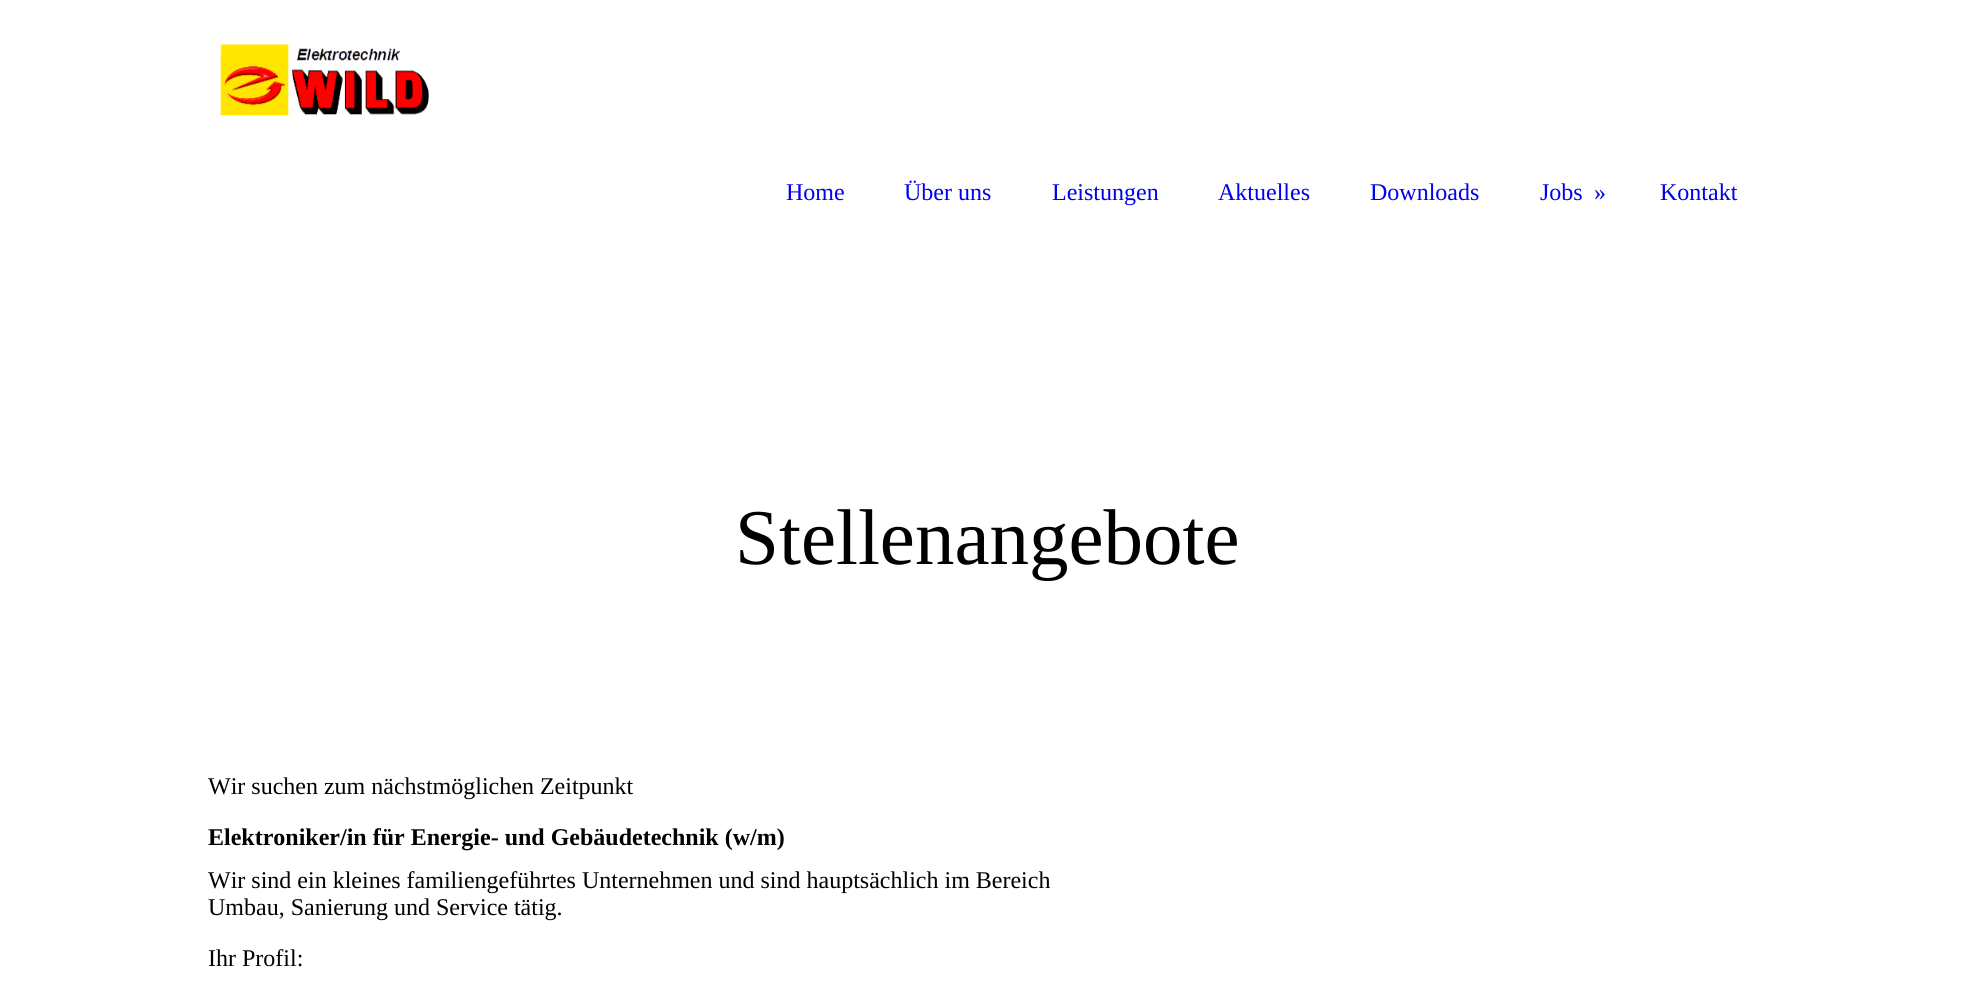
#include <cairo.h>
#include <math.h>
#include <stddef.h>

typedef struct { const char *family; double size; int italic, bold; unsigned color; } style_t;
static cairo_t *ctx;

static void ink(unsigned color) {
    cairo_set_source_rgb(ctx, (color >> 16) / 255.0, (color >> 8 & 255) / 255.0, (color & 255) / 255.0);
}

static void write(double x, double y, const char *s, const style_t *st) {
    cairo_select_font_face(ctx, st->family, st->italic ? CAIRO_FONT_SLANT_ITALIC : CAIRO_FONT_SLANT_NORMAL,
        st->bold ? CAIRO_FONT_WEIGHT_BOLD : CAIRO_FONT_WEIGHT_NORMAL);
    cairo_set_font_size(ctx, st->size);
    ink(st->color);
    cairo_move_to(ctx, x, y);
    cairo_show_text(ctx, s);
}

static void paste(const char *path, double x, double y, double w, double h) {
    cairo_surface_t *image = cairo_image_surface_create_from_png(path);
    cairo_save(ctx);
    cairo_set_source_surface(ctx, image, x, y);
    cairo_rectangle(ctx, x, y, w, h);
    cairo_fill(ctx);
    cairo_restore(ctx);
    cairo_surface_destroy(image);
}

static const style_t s1 = {"Liberation Serif", 24, 0, 0, 0x0000ee};
static const style_t s2 = {"Liberation Serif", 79, 0, 0, 0x000000};
static const style_t s3 = {"Liberation Serif", 24, 0, 0, 0x000000};
static const style_t s4 = {"Liberation Serif", 24, 0, 1, 0x000000};

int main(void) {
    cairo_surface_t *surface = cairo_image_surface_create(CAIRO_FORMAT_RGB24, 1975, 1001);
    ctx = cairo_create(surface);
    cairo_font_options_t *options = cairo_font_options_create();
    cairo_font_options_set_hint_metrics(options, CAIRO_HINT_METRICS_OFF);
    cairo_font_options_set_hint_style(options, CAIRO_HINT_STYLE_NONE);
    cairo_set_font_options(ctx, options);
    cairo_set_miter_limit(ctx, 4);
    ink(0xffffff);
    cairo_paint(ctx);
    paste("pic1.png", 220, 44, 209, 72);
    write(786, 200, "Home", &s1);
    write(904, 200, "Über uns", &s1);
    write(1052, 200, "Leistungen", &s1);
    write(1218, 200, "Aktuelles", &s1);
    write(1370, 200, "Downloads", &s1);
    write(1540, 200, "Jobs", &s1);
    write(1594, 200, "»", &s1);
    write(1660, 200, "Kontakt", &s1);
    write(735, 564, "Stellenangebote", &s2);
    write(208, 794, "Wir suchen zum nächstmöglichen Zeitpunkt", &s3);
    write(208, 845, "Elektroniker/in für Energie- und Gebäudetechnik (w/m)", &s4);
    write(208, 888, "Wir sind ein kleines familiengeführtes Unternehmen und sind hauptsächlich im Bereich", &s3);
    write(208, 915, "Umbau, Sanierung und Service tätig.", &s3);
    write(208, 966, "Ihr Profil:", &s3);
    cairo_surface_write_to_png(surface, "screenshot.png");
    cairo_font_options_destroy(options);
    cairo_destroy(ctx);
    cairo_surface_destroy(surface);
    return 0;
}
